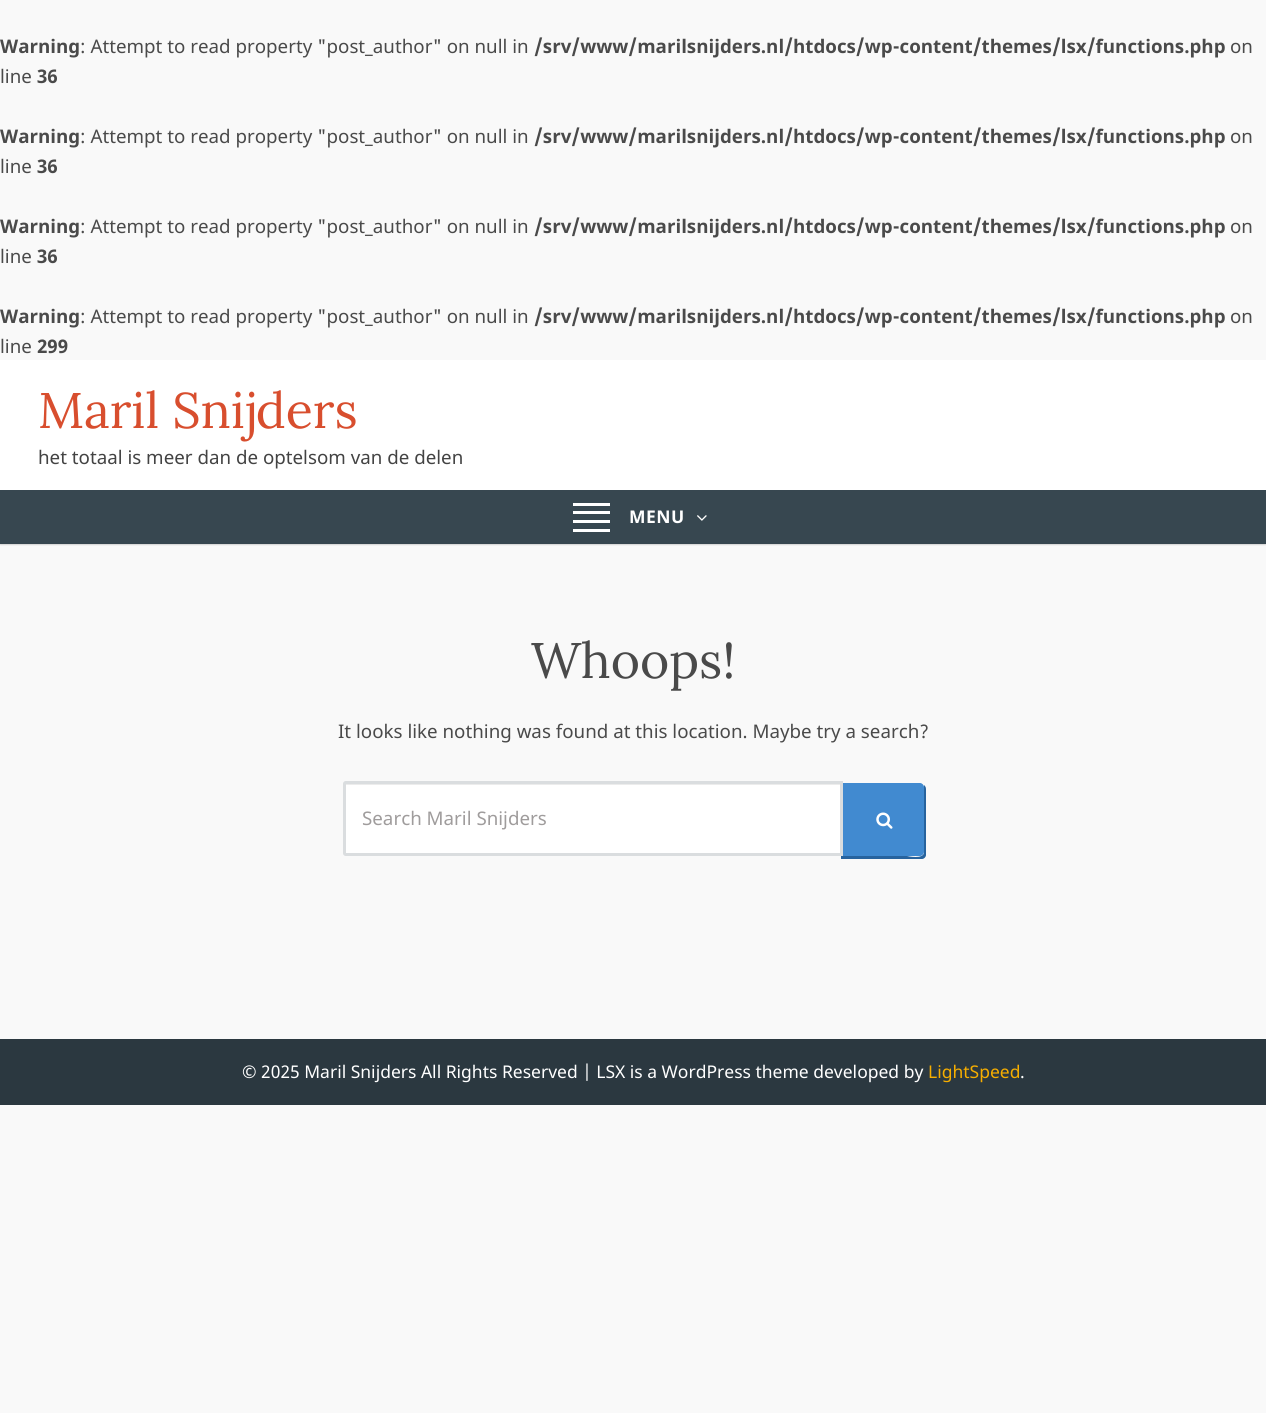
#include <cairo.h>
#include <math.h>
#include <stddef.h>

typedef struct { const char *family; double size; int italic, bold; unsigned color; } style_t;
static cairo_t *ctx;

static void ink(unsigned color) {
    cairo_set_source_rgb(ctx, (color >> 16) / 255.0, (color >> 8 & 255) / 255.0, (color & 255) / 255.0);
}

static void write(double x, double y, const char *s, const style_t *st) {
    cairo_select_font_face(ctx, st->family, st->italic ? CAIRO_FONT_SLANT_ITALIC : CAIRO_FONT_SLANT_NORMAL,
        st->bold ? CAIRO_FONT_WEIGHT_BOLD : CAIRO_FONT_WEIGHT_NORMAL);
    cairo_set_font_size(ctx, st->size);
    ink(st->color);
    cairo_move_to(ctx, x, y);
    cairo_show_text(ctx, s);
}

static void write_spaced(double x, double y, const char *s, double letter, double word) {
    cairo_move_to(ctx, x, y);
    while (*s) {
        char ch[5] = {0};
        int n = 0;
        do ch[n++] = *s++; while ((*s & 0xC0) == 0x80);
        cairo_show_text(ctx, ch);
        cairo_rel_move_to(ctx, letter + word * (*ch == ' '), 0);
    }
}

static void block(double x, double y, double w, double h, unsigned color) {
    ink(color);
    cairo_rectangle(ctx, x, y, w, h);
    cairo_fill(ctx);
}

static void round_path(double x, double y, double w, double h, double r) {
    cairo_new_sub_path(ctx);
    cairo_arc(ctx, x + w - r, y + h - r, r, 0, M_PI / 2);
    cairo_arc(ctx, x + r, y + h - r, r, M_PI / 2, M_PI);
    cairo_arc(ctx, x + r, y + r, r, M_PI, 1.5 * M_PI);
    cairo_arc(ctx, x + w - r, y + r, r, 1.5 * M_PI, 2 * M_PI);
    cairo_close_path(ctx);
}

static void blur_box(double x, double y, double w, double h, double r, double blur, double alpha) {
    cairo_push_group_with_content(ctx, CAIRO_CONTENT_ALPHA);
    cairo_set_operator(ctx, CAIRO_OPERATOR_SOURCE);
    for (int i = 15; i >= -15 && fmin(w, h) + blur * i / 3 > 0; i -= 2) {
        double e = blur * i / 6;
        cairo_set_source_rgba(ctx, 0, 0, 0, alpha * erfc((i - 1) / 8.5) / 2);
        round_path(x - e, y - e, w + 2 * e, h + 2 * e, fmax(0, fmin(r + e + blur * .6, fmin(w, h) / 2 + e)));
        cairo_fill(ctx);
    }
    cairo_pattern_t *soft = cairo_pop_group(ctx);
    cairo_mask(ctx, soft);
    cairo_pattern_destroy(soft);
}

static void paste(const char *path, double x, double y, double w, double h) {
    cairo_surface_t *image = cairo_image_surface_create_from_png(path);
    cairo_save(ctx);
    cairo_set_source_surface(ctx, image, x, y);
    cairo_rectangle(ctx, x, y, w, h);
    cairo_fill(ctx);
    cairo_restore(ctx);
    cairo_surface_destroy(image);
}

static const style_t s1 = {"Noto Sans", 18.75, 0, 1, 0x4a4a4a};
static const style_t s2 = {"Noto Sans", 18.75, 0, 0, 0x4a4a4a};
static const style_t s3 = {"Lora", 50, 0, 0, 0xd84e2e};
static const style_t s4 = {"Noto Sans", 18.75, 0, 0, 0x434343};
static const style_t s5 = {"Lora", 50, 0, 0, 0x4a4a4a};
static const style_t s6 = {"Noto Sans", 18.75, 0, 0, 0x9f9c9c};
static const style_t s7 = {"Noto Sans", 17.5, 0, 0, 0xffffff};
static const style_t s8 = {"Noto Sans", 17.5, 0, 0, 0xf7ae00};

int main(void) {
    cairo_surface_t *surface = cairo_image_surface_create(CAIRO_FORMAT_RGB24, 1266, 1413);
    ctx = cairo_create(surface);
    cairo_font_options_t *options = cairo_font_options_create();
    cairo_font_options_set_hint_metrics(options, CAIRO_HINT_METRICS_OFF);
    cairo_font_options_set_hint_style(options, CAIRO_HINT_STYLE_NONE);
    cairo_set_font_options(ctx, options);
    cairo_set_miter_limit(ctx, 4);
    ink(0xf9f9f9);
    cairo_paint(ctx);
    write(0, 53, "Warning", &s1);
    write(80, 53, ": Attempt to read property \"post_author\" on null in", &s2);
    write(534, 53, "/srv/www/marilsnijders.nl/htdocs/wp-content/themes/lsx/functions.php", &s1);
    write(1230, 53, "on", &s2);
    write(0, 83, "line", &s2);
    write(37, 83, "36", &s1);
    write(0, 143, "Warning", &s1);
    write(80, 143, ": Attempt to read property \"post_author\" on null in", &s2);
    write(534, 143, "/srv/www/marilsnijders.nl/htdocs/wp-content/themes/lsx/functions.php", &s1);
    write(1230, 143, "on", &s2);
    write(0, 173, "line", &s2);
    write(37, 173, "36", &s1);
    write(0, 233, "Warning", &s1);
    write(80, 233, ": Attempt to read property \"post_author\" on null in", &s2);
    write(534, 233, "/srv/www/marilsnijders.nl/htdocs/wp-content/themes/lsx/functions.php", &s1);
    write(1230, 233, "on", &s2);
    write(0, 263, "line", &s2);
    write(37, 263, "36", &s1);
    write(0, 323, "Warning", &s1);
    write(80, 323, ": Attempt to read property \"post_author\" on null in", &s2);
    write(534, 323, "/srv/www/marilsnijders.nl/htdocs/wp-content/themes/lsx/functions.php", &s1);
    write(1230, 323, "on", &s2);
    write(0, 353, "line", &s2);
    write(37, 353, "299", &s1);
    ink(0x000000);
    blur_box(0, 361, 1266, 184, 0, 0.5, 0.15);
    block(0, 360, 1266, 130, 0xffffff);
    write(38, 428, "Maril Snijders", &s3);
    write(38, 464, "het totaal is meer dan de optelsom van de delen", &s4);
    block(0, 490, 1266, 54, 0x374750);
    block(573, 503, 37, 3, 0xffffff);
    block(573, 511, 37, 3, 0xffffff);
    block(573, 520, 37, 3, 0xffffff);
    block(573, 529, 37, 3, 0xffffff);
    cairo_select_font_face(ctx, "Noto Sans", CAIRO_FONT_SLANT_NORMAL, CAIRO_FONT_WEIGHT_BOLD);
    cairo_set_font_size(ctx, 17.5);
    write_spaced(629, 523, "MENU", 0.5, 0);
    paste("pic1.png", 697, 515, 10, 6);
    write(531, 678, "Whoops!", &s5);
    write(338, 738, "It looks like nothing was found at this location. Maybe try a search?", &s2);
    ink(0x27639e);
    cairo_new_path(ctx);
    cairo_move_to(ctx, 841, 856);
    cairo_line_to(ctx, 841, 859);
    cairo_line_to(ctx, 922, 859);
    cairo_curve_to(ctx, 924, 859, 926, 857, 926, 855);
    cairo_line_to(ctx, 926, 789);
    cairo_curve_to(ctx, 926, 787, 925, 786, 924, 785);
    cairo_line_to(ctx, 924, 852);
    cairo_curve_to(ctx, 924, 860, 907, 856, 907, 856);
    cairo_close_path(ctx);
    cairo_fill(ctx);
    ink(0x418ad0);
    cairo_new_path(ctx);
    cairo_move_to(ctx, 839, 783);
    cairo_line_to(ctx, 920, 783);
    cairo_curve_to(ctx, 922, 783, 924, 785, 924, 787);
    cairo_line_to(ctx, 924, 852);
    cairo_curve_to(ctx, 924, 854, 922, 856, 920, 856);
    cairo_line_to(ctx, 839, 856);
    cairo_close_path(ctx);
    cairo_fill(ctx);
    ink(0xffffff);
    cairo_new_path(ctx);
    cairo_move_to(ctx, 345.5, 781);
    cairo_line_to(ctx, 843, 781);
    cairo_line_to(ctx, 843, 856);
    cairo_line_to(ctx, 345.5, 856);
    cairo_curve_to(ctx, 344, 856, 343, 855, 343, 853.5);
    cairo_line_to(ctx, 343, 783.5);
    cairo_curve_to(ctx, 343, 782, 344, 781, 345.5, 781);
    cairo_close_path(ctx);
    cairo_fill(ctx);
    block(345, 784, 495, 1, 0xececec);
    cairo_new_path(ctx);
    cairo_move_to(ctx, 345.5, 782.5);
    cairo_line_to(ctx, 841.5, 782.5);
    cairo_line_to(ctx, 841.5, 854.5);
    cairo_line_to(ctx, 345.5, 854.5);
    cairo_curve_to(ctx, 345, 854.5, 344.5, 854, 344.5, 853.5);
    cairo_line_to(ctx, 344.5, 783.5);
    cairo_curve_to(ctx, 344.5, 783, 345, 782.5, 345.5, 782.5);
    cairo_close_path(ctx);
    ink(0xdadddf);
    cairo_set_line_width(ctx, 3);
    cairo_stroke(ctx);
    write(362, 825, "Search Maril Snijders", &s6);
    paste("pic2.png", 876, 812, 17, 17);
    block(0, 1039, 1266, 66, 0x2b3840);
    write(242, 1078, "© 2025 Maril Snijders All Rights Reserved | LSX is a WordPress theme developed by", &s7);
    write(928, 1078, "LightSpeed", &s8);
    write(1020, 1078, ".", &s7);
    cairo_surface_write_to_png(surface, "screenshot.png");
    cairo_font_options_destroy(options);
    cairo_destroy(ctx);
    cairo_surface_destroy(surface);
    return 0;
}
